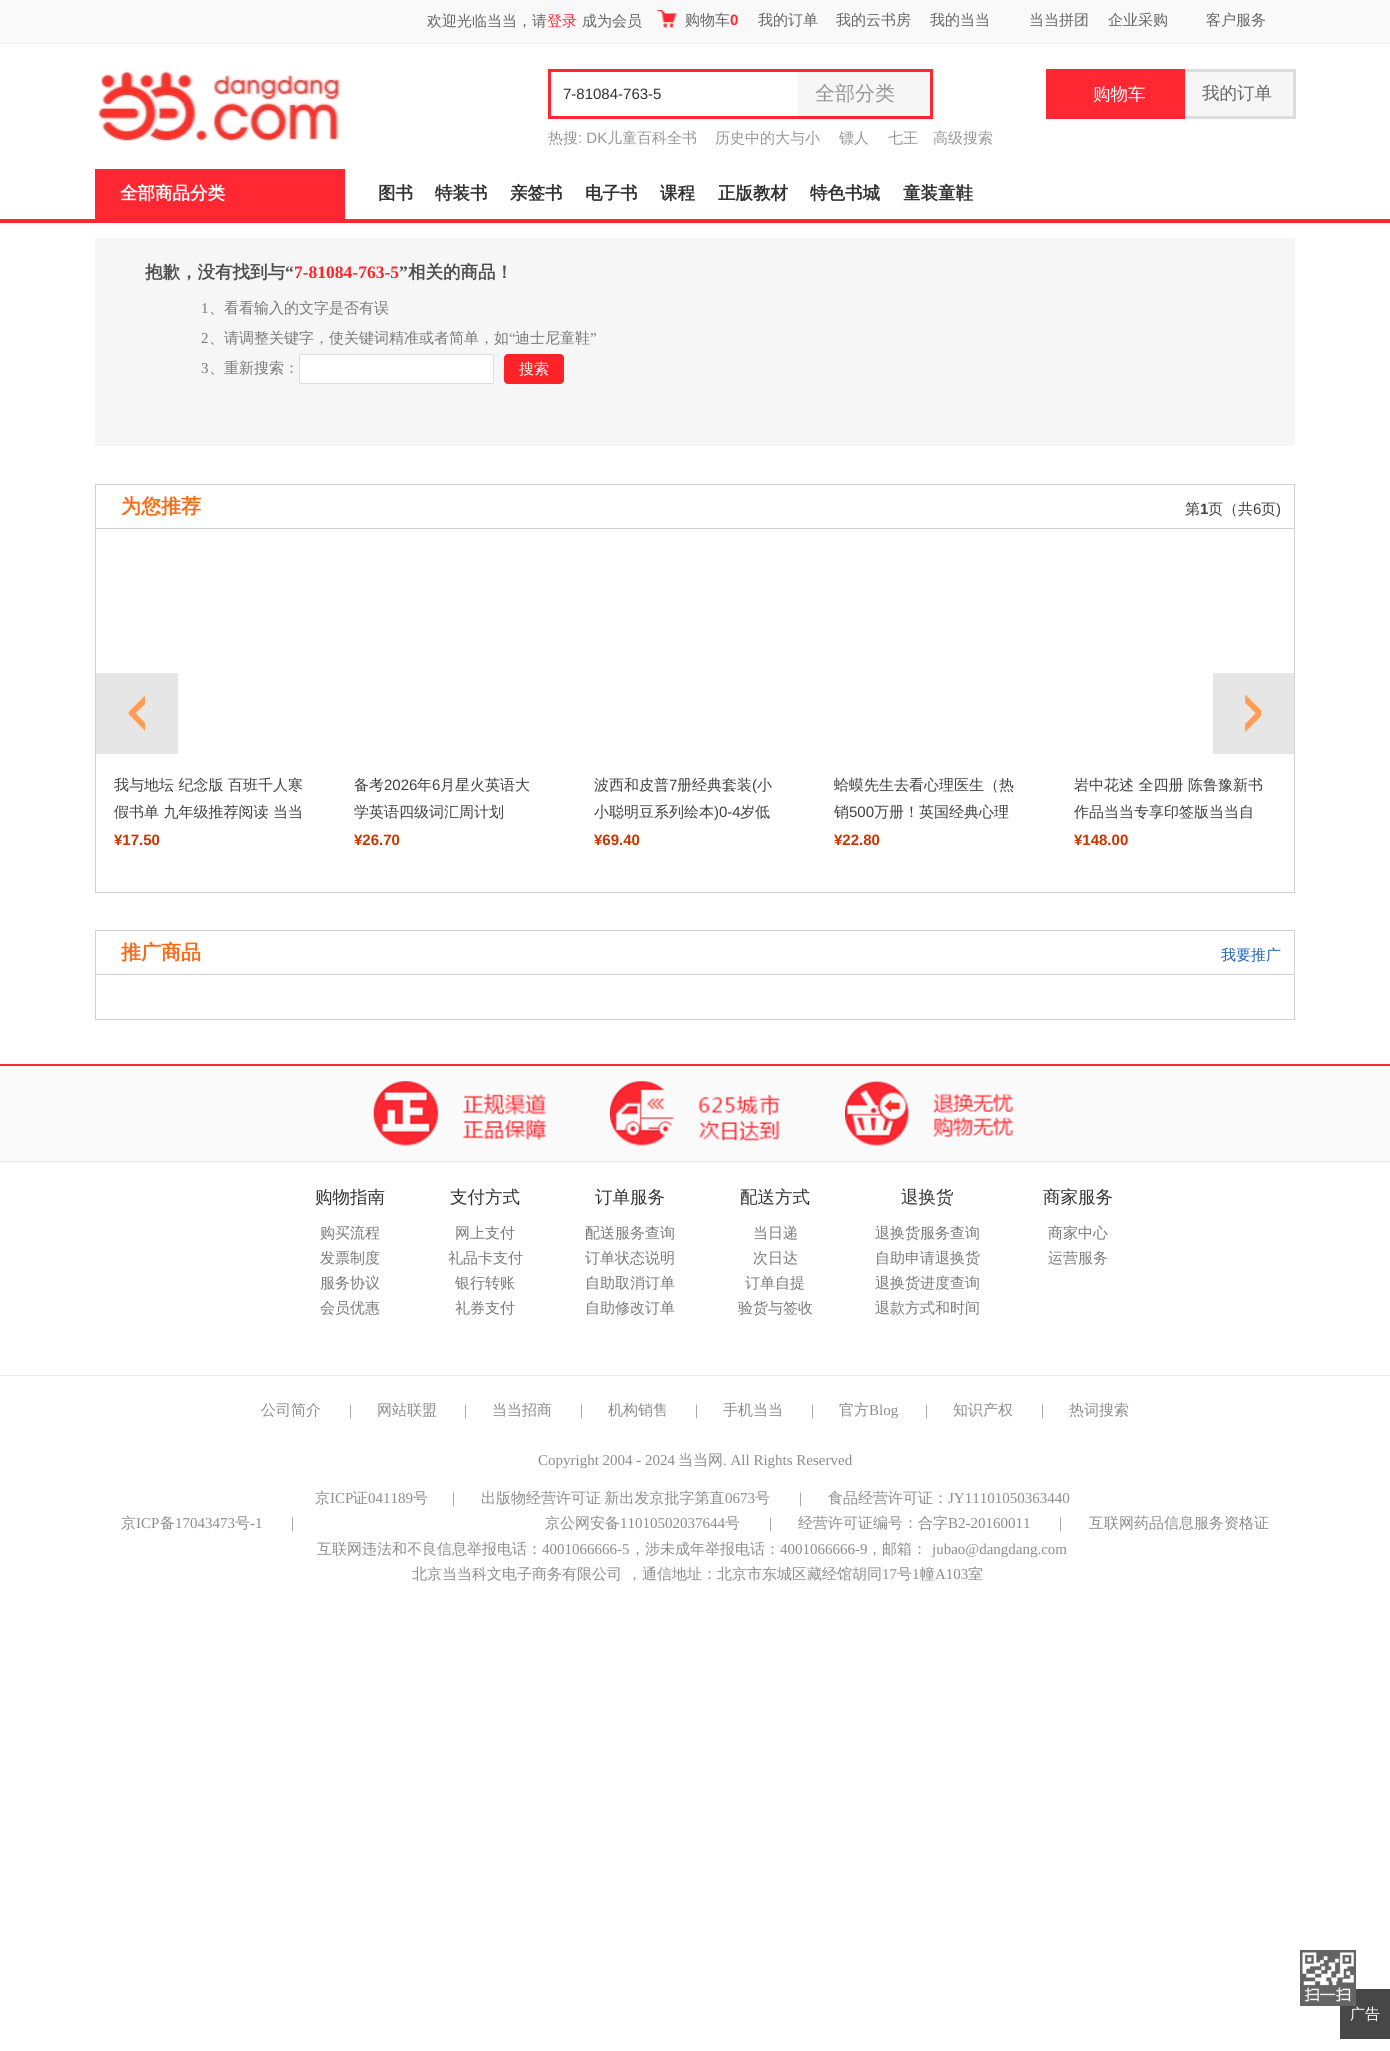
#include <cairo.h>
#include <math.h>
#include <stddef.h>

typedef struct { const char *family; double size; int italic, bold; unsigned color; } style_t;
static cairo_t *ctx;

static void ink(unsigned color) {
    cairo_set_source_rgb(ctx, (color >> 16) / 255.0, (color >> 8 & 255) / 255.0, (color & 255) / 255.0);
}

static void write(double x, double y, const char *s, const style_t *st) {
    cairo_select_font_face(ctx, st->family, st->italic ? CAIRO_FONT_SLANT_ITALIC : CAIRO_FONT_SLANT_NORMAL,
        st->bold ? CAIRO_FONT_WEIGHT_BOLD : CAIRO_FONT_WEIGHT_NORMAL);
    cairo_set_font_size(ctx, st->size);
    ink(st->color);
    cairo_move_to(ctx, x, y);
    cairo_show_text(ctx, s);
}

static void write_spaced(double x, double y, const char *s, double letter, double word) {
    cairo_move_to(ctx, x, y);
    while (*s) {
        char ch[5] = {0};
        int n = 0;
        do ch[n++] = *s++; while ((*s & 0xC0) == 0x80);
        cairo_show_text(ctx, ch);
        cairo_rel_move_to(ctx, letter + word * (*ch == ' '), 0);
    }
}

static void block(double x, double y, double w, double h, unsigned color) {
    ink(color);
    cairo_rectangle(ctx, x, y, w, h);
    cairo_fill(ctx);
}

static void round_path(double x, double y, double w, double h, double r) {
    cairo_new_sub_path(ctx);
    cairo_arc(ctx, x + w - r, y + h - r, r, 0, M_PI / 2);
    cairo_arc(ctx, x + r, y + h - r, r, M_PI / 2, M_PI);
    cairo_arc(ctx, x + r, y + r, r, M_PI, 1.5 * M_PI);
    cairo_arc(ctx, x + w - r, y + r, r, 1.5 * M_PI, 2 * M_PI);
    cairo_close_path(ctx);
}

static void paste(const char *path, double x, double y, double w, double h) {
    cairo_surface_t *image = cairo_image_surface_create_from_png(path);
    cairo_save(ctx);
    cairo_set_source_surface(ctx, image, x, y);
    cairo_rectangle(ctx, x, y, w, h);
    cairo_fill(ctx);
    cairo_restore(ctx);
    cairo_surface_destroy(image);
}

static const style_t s1 = {"WenQuanYi Zen Hei Medium", 15, 0, 0, 0x646464};
static const style_t s2 = {"WenQuanYi Zen Hei Medium", 15, 0, 0, 0xff2832};
static const style_t s3 = {"Liberation Sans", 15, 0, 1, 0xff2832};
static const style_t s4 = {"Liberation Sans", 15, 0, 0, 0x323232};
static const style_t s5 = {"WenQuanYi Zen Hei Medium", 20, 0, 0, 0x969696};
static const style_t s6 = {"WenQuanYi Zen Hei Medium", 17.5, 0, 0, 0xffffff};
static const style_t s7 = {"WenQuanYi Zen Hei Medium", 17.5, 0, 0, 0x646464};
static const style_t s8 = {"WenQuanYi Zen Hei Medium", 15, 0, 0, 0x969696};
static const style_t s9 = {"Liberation Sans", 15, 0, 0, 0x969696};
static const style_t s10 = {"WenQuanYi Zen Hei", 17.5, 0, 1, 0xffffff};
static const style_t s11 = {"WenQuanYi Zen Hei", 17.5, 0, 1, 0x323232};
static const style_t s12 = {"WenQuanYi Zen Hei", 17.5, 0, 1, 0x505050};
static const style_t s13 = {"Liberation Serif", 17.5, 0, 1, 0x505050};
static const style_t s14 = {"Liberation Serif", 17.5, 0, 1, 0xff2328};
static const style_t s15 = {"Liberation Serif", 15, 0, 0, 0x797979};
static const style_t s16 = {"WenQuanYi Zen Hei Medium", 15, 0, 0, 0x797979};
static const style_t s17 = {"WenQuanYi Zen Hei Medium", 15, 0, 0, 0xffffff};
static const style_t s18 = {"WenQuanYi Zen Hei", 20, 0, 1, 0xfd6a15};
static const style_t s19 = {"WenQuanYi Zen Hei Medium", 15, 0, 0, 0x404040};
static const style_t s20 = {"Liberation Sans", 15, 0, 1, 0x404040};
static const style_t s21 = {"Liberation Sans", 15, 0, 0, 0x404040};
static const style_t s22 = {"Liberation Sans", 15, 0, 1, 0xcc3300};
static const style_t s23 = {"WenQuanYi Zen Hei Medium", 15, 0, 0, 0x1a66b3};
static const style_t s24 = {"WenQuanYi Zen Hei Medium", 17.5, 0, 0, 0x323232};
static const style_t s25 = {"WenQuanYi Zen Hei Medium", 15, 0, 0, 0x8c8c8c};
static const style_t s26 = {"Liberation Serif", 15, 0, 0, 0x8c8c8c};

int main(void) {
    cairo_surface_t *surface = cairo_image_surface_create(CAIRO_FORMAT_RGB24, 1390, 2051);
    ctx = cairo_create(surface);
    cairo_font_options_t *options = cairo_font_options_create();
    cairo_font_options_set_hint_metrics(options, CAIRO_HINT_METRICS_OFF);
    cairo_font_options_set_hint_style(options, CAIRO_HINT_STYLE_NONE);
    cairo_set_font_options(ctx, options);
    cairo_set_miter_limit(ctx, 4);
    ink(0xffffff);
    cairo_paint(ctx);
    block(0, 0, 1390, 43, 0xf9f9f9);
    block(0, 43, 1390, 1, 0xf2f2f2);
    write(427, 26, "欢迎光临当当，请", &s1);
    write(547, 26, "登录", &s2);
    write(582, 26, "成为会员", &s1);
    paste("pic1.png", 657, 10, 20, 18);
    write(685, 25, "购物车", &s1);
    write(730, 25, "0", &s3);
    write(758, 25, "我的订单", &s1);
    write(836, 25, "我的云书房", &s1);
    write(930, 25, "我的当当", &s1);
    write(1029, 25, "当当拼团", &s1);
    write(1108, 25, "企业采购", &s1);
    write(1206, 25, "客户服务", &s1);
    paste("pic2.png", 97, 70, 244, 73);
    block(548, 69, 385, 3, 0xff2832);
    block(930, 69, 3, 50, 0xff2832);
    block(548, 116, 385, 3, 0xff2832);
    block(548, 69, 3, 50, 0xff2832);
    write(563, 99, "7-81084-763-5", &s4);
    block(798, 72, 132, 44, 0xf6f6f6);
    write(815, 100, "全部分类", &s5);
    block(1046, 69, 139, 50, 0xff2832);
    write(1093, 100, "购物车", &s6);
    block(1185, 72, 108, 44, 0xf6f6f6);
    block(1185, 69, 110, 3, 0xdcdcdc);
    block(1293, 69, 3, 50, 0xdcdcdc);
    block(1185, 116, 110, 3, 0xdcdcdc);
    write(1202, 99, "我的订单", &s7);
    write(548, 143, "热搜", &s8);
    write(578, 143, ": DK", &s9);
    write(607, 143, "儿童百科全书", &s8);
    write(715, 143, "历史中的大与小", &s8);
    write(839, 143, "镖人", &s8);
    write(888, 143, "七王", &s8);
    write(933, 143, "高级搜索", &s8);
    block(0, 219, 1390, 4, 0xff2832);
    block(95, 169, 250, 50, 0xff2832);
    write(120, 199, "全部商品分类", &s10);
    write(378, 199, "图书", &s11);
    write(435, 199, "特装书", &s11);
    write(510, 199, "亲签书", &s11);
    write(585, 199, "电子书", &s11);
    write(660, 199, "课程", &s11);
    write(718, 199, "正版教材", &s11);
    write(810, 199, "特色书城", &s11);
    write(903, 199, "童装童鞋", &s11);
    block(95, 238, 1200, 208, 0xf6f6f6);
    write(145, 278, "抱歉，没有找到与", &s12);
    write(285, 278, "“", &s13);
    write(294, 278, "7-81084-763-5", &s14);
    write(399, 278, "”", &s13);
    write(408, 278, "相关的商品！", &s12);
    write(201, 313, "1", &s15);
    write(209, 313, "、看看输入的文字是否有误", &s16);
    write(201, 343, "2", &s15);
    write(209, 343, "、请调整关键字，使关键词精准或者简单，如", &s16);
    write(509, 343, "“", &s15);
    write(515, 343, "迪士尼童鞋", &s16);
    write(590, 343, "”", &s15);
    write(201, 373, "3", &s15);
    write(209, 373, "、重新搜索：", &s16);
    ink(0xffffff);
    cairo_rectangle(ctx, 299.5, 354.5, 194, 29);
    cairo_fill_preserve(ctx);
    ink(0xdfdfdf);
    cairo_set_line_width(ctx, 1);
    cairo_stroke(ctx);
    ink(0xff2328);
    round_path(504, 354, 60, 30, 4);
    cairo_fill(ctx);
    write(519, 374, "搜索", &s17);
    cairo_rectangle(ctx, 95.5, 484.5, 1199, 408);
    ink(0xd1d1d1);
    cairo_stroke(ctx);
    block(96, 528, 1198, 1, 0xd1d1d1);
    write(121, 513, "为您推荐", &s18);
    write(1185, 514, "第", &s19);
    write(1200, 514, "1", &s20);
    write(1208, 514, "页（共", &s19);
    write(1253, 514, "6", &s21);
    write(1261, 514, "页", &s19);
    write(1276, 514, ")", &s21);
    block(96, 673, 82, 81, 0xe6e6e6);
    paste("pic3.png", 128, 695, 17, 37);
    block(1213, 673, 81, 81, 0xe6e6e6);
    paste("pic4.png", 1245, 693, 17, 40);
    write(114, 790, "我与地坛 纪念版 百班千人寒", &s19);
    write(114, 817, "假书单 九年级推荐阅读 当当", &s19);
    write(114, 845, "¥17.50", &s22);
    write(354, 790, "备考", &s19);
    write(384, 790, "2026", &s21);
    write(417, 790, "年", &s19);
    write(432, 790, "6", &s21);
    write(440, 790, "月星火英语大", &s19);
    write(354, 817, "学英语四级词汇周计划", &s19);
    write(354, 845, "¥26.70", &s22);
    write(594, 790, "波西和皮普", &s19);
    write(669, 790, "7", &s21);
    write(677, 790, "册经典套装", &s19);
    write(752, 790, "(", &s21);
    write(757, 790, "小", &s19);
    write(594, 817, "小聪明豆系列绘本", &s19);
    write(714, 817, ")0-4", &s21);
    write(740, 817, "岁低", &s19);
    write(594, 845, "¥69.40", &s22);
    write(834, 790, "蛤蟆先生去看心理医生（热", &s19);
    write(834, 817, "销", &s19);
    write(849, 817, "500", &s21);
    write(874, 817, "万册！英国经典心理", &s19);
    write(834, 845, "¥22.80", &s22);
    write(1074, 790, "岩中花述 全四册 陈鲁豫新书", &s19);
    write(1074, 817, "作品当当专享印签版当当自", &s19);
    write(1074, 845, "¥148.00", &s22);
    cairo_rectangle(ctx, 95.5, 930.5, 1199, 89);
    ink(0xd1d1d1);
    cairo_stroke(ctx);
    block(96, 974, 1198, 1, 0xd1d1d1);
    write(121, 959, "推广商品", &s18);
    write(1221, 960, "我要推广", &s23);
    block(1340, 1989, 50, 50, 0x474747);
    paste("pic5.png", 1300, 1950, 56, 56);
    block(0, 1064, 1390, 2, 0xff2832);
    block(0, 1066, 1390, 97, 0xfafafa);
    block(0, 1161, 1390, 1, 0xebebeb);
    paste("pic6.png", 373, 1081, 174, 66);
    paste("pic7.png", 610, 1081, 171, 66);
    paste("pic8.png", 845, 1081, 169, 65);
    write(315, 1203, "购物指南", &s24);
    write(320, 1238, "购买流程", &s16);
    write(320, 1263, "发票制度", &s16);
    write(320, 1288, "服务协议", &s16);
    write(320, 1313, "会员优惠", &s16);
    write(450, 1203, "支付方式", &s24);
    write(455, 1238, "网上支付", &s16);
    write(448, 1263, "礼品卡支付", &s16);
    write(455, 1288, "银行转账", &s16);
    write(455, 1313, "礼券支付", &s16);
    write(595, 1203, "订单服务", &s24);
    write(585, 1238, "配送服务查询", &s16);
    write(585, 1263, "订单状态说明", &s16);
    write(585, 1288, "自助取消订单", &s16);
    write(585, 1313, "自助修改订单", &s16);
    write(740, 1203, "配送方式", &s24);
    write(753, 1238, "当日递", &s16);
    write(753, 1263, "次日达", &s16);
    write(745, 1288, "订单自提", &s16);
    write(738, 1313, "验货与签收", &s16);
    write(901, 1203, "退换货", &s24);
    write(875, 1238, "退换货服务查询", &s16);
    write(875, 1263, "自助申请退换货", &s16);
    write(875, 1288, "退换货进度查询", &s16);
    write(875, 1313, "退款方式和时间", &s16);
    write(1043, 1203, "商家服务", &s24);
    write(1048, 1238, "商家中心", &s16);
    write(1048, 1263, "运营服务", &s16);
    block(0, 1375, 1390, 1, 0xebebeb);
    write(261, 1415, "公司简介", &s25);
    write(349, 1415, "|", &s26);
    write(377, 1415, "网站联盟", &s25);
    write(464, 1415, "|", &s26);
    write(492, 1415, "当当招商", &s25);
    write(580, 1415, "|", &s26);
    write(608, 1415, "机构销售", &s25);
    write(695, 1415, "|", &s26);
    write(723, 1415, "手机当当", &s25);
    write(811, 1415, "|", &s26);
    write(839, 1415, "官方", &s25);
    write(869, 1415, "Blog", &s26);
    write(925, 1415, "|", &s26);
    write(953, 1415, "知识产权", &s25);
    write(1041, 1415, "|", &s26);
    write(1069, 1415, "热词搜索", &s25);
    write(538, 1465, "Copyright 2004 - 2024", &s26);
    write(678, 1465, "当当网", &s25);
    write(723, 1465, ". All Rights Reserved", &s26);
    write(315, 1503, "京", &s25);
    write(330, 1503, "ICP", &s26);
    write(353, 1503, "证", &s25);
    write(368, 1503, "041189", &s26);
    write(413, 1503, "号", &s25);
    write(452, 1503, "|", &s26);
    cairo_select_font_face(ctx, "WenQuanYi Zen Hei Medium", CAIRO_FONT_SLANT_NORMAL, CAIRO_FONT_WEIGHT_NORMAL);
    write_spaced(481, 1503, "出版物经营许可证 新出发京批字第直", 0, -1);
    write(725, 1503, "0673", &s26);
    write(755, 1503, "号", &s25);
    write(799, 1503, "|", &s26);
    write(828, 1503, "食品经营许可证：", &s25);
    write(948, 1503, "JY11101050363440", &s26);
    write(121, 1528, "京", &s25);
    write(136, 1528, "ICP", &s26);
    write(160, 1528, "备", &s25);
    write(175, 1528, "17043473", &s26);
    write(235, 1528, "号", &s25);
    write(250, 1528, "-1", &s26);
    write(291, 1528, "|", &s26);
    write(545, 1528, "京公网安备", &s25);
    write(620, 1528, "11010502037644", &s26);
    write(725, 1528, "号", &s25);
    write(769, 1528, "|", &s26);
    write(798, 1528, "经营许可证编号：合字", &s25);
    write(948, 1528, "B2-20160011", &s26);
    write(1059, 1528, "|", &s26);
    write(1089, 1528, "互联网药品信息服务资格证", &s25);
    write(317, 1554, "互联网违法和不良信息举报电话：", &s25);
    write(542, 1554, "4001066666-5", &s26);
    write(630, 1554, "，涉未成年举报电话：", &s25);
    write(780, 1554, "4001066666-9", &s26);
    write(867, 1554, "，邮箱：", &s25);
    write(932, 1554, "jubao@dangdang.com", &s26);
    write(412, 1579, "北京当当科文电子商务有限公司", &s25);
    write(627, 1579, "，通信地址：北京市东城区藏经馆胡同", &s25);
    write(882, 1579, "17", &s26);
    write(897, 1579, "号", &s25);
    write(912, 1579, "1", &s26);
    write(920, 1579, "幢", &s25);
    write(935, 1579, "A103", &s26);
    write(968, 1579, "室", &s25);
    write(1350, 2019, "广告", &s17);
    cairo_surface_write_to_png(surface, "screenshot.png");
    cairo_font_options_destroy(options);
    cairo_destroy(ctx);
    cairo_surface_destroy(surface);
    return 0;
}
